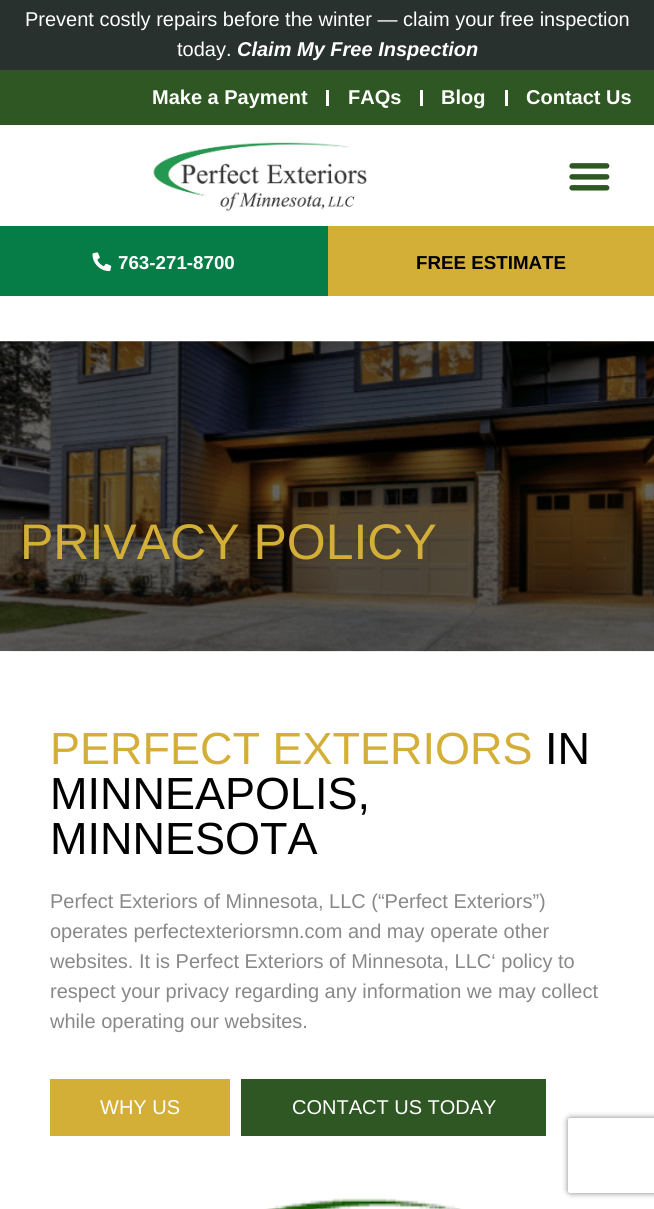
#include <cairo.h>
#include <math.h>
#include <stddef.h>

typedef struct { const char *family; double size; int italic, bold; unsigned color; } style_t;
static cairo_t *ctx;

static void ink(unsigned color) {
    cairo_set_source_rgb(ctx, (color >> 16) / 255.0, (color >> 8 & 255) / 255.0, (color & 255) / 255.0);
}

static void write(double x, double y, const char *s, const style_t *st) {
    cairo_select_font_face(ctx, st->family, st->italic ? CAIRO_FONT_SLANT_ITALIC : CAIRO_FONT_SLANT_NORMAL,
        st->bold ? CAIRO_FONT_WEIGHT_BOLD : CAIRO_FONT_WEIGHT_NORMAL);
    cairo_set_font_size(ctx, st->size);
    ink(st->color);
    cairo_move_to(ctx, x, y);
    cairo_show_text(ctx, s);
}

static void block(double x, double y, double w, double h, unsigned color) {
    ink(color);
    cairo_rectangle(ctx, x, y, w, h);
    cairo_fill(ctx);
}

static void round_path(double x, double y, double w, double h, double r) {
    cairo_new_sub_path(ctx);
    cairo_arc(ctx, x + w - r, y + h - r, r, 0, M_PI / 2);
    cairo_arc(ctx, x + r, y + h - r, r, M_PI / 2, M_PI);
    cairo_arc(ctx, x + r, y + r, r, M_PI, 1.5 * M_PI);
    cairo_arc(ctx, x + w - r, y + r, r, 1.5 * M_PI, 2 * M_PI);
    cairo_close_path(ctx);
}

static void blur_box(double x, double y, double w, double h, double r, double blur, double alpha) {
    cairo_push_group_with_content(ctx, CAIRO_CONTENT_ALPHA);
    cairo_set_operator(ctx, CAIRO_OPERATOR_SOURCE);
    for (int i = 15; i >= -15 && fmin(w, h) + blur * i / 3 > 0; i -= 2) {
        double e = blur * i / 6;
        cairo_set_source_rgba(ctx, 0, 0, 0, alpha * erfc((i - 1) / 8.5) / 2);
        round_path(x - e, y - e, w + 2 * e, h + 2 * e, fmax(0, fmin(r + e + blur * .6, fmin(w, h) / 2 + e)));
        cairo_fill(ctx);
    }
    cairo_pattern_t *soft = cairo_pop_group(ctx);
    cairo_mask(ctx, soft);
    cairo_pattern_destroy(soft);
}

static void paste(const char *path, double x, double y, double w, double h) {
    cairo_surface_t *image = cairo_image_surface_create_from_png(path);
    cairo_save(ctx);
    cairo_set_source_surface(ctx, image, x, y);
    cairo_rectangle(ctx, x, y, w, h);
    cairo_fill(ctx);
    cairo_restore(ctx);
    cairo_surface_destroy(image);
}

static const style_t s1 = {"Liberation Sans", 20, 0, 0, 0xffffff};
static const style_t s2 = {"Liberation Sans", 20, 1, 1, 0xffffff};
static const style_t s3 = {"Liberation Sans", 20, 0, 1, 0xffffff};
static const style_t s4 = {"Liberation Sans", 18.75, 0, 1, 0xffffff};
static const style_t s5 = {"Liberation Sans", 18.75, 0, 1, 0x000000};
static const style_t s6 = {"Liberation Sans", 50, 0, 0, 0xd4af37};
static const style_t s7 = {"Liberation Sans", 45, 0, 0, 0xd4af37};
static const style_t s8 = {"Liberation Sans", 45, 0, 0, 0x000000};
static const style_t s9 = {"Liberation Sans", 20, 0, 0, 0x888888};

int main(void) {
    cairo_surface_t *surface = cairo_image_surface_create(CAIRO_FORMAT_RGB24, 654, 1209);
    ctx = cairo_create(surface);
    cairo_font_options_t *options = cairo_font_options_create();
    cairo_font_options_set_hint_metrics(options, CAIRO_HINT_METRICS_OFF);
    cairo_font_options_set_hint_style(options, CAIRO_HINT_STYLE_NONE);
    cairo_set_font_options(ctx, options);
    cairo_set_miter_limit(ctx, 4);
    ink(0xffffff);
    cairo_paint(ctx);
    block(0, 0, 654, 70, 0x28312d);
    write(25, 26, "Prevent costly repairs before the winter — claim your free inspection", &s1);
    write(177, 56, "today.", &s1);
    write(237, 56, "Claim My Free Inspection", &s2);
    block(0, 70, 654, 55, 0x2f5724);
    write(152, 104, "Make a Payment", &s3);
    block(326, 90, 3, 16, 0xffffff);
    write(348, 104, "FAQs", &s3);
    block(420, 90, 3, 16, 0xffffff);
    write(441, 104, "Blog", &s3);
    block(505, 90, 3, 16, 0xffffff);
    write(526, 104, "Contact Us", &s3);
    paste("pic1.png", 153, 142, 214, 70);
    paste("pic2.png", 569, 163, 41, 28);
    block(0, 226, 328, 70, 0x067c46);
    paste("pic3.png", 92, 252, 20, 20);
    write(118, 269, "763-271-8700", &s4);
    block(328, 226, 326, 70, 0xd4af37);
    write(416, 269, "FREE ESTIMATE", &s5);
    paste("pic4.png", 0, 341, 654, 311);
    write(20, 559, "PRIVACY POLICY", &s6);
    write(50, 764, "PERFECT EXTERIORS", &s7);
    write(545, 764, "IN", &s8);
    write(50, 809, "MINNEAPOLIS,", &s8);
    write(50, 854, "MINNESOTA", &s8);
    write(50, 908, "Perfect Exteriors of Minnesota, LLC (“Perfect Exteriors”)", &s9);
    write(50, 938, "operates perfectexteriorsmn.com and may operate other", &s9);
    write(50, 968, "websites. It is Perfect Exteriors of Minnesota, LLC‘ policy to", &s9);
    write(50, 998, "respect your privacy regarding any information we may collect", &s9);
    write(50, 1028, "while operating our websites.", &s9);
    block(50, 1079, 180, 57, 0xd4af37);
    write(100, 1114, "WHY US", &s1);
    block(241, 1079, 305, 57, 0x2f5724);
    write(292, 1114, "CONTACT US TODAY", &s1);
    paste("pic5.png", 266, 1198, 197, 11);
    cairo_save(ctx);
    cairo_set_fill_rule(ctx, CAIRO_FILL_RULE_EVEN_ODD);
    cairo_new_path(ctx);
    cairo_move_to(ctx, 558, 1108);
    cairo_line_to(ctx, 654, 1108);
    cairo_line_to(ctx, 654, 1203);
    cairo_line_to(ctx, 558, 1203);
    cairo_close_path(ctx);
    cairo_move_to(ctx, 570.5, 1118);
    cairo_line_to(ctx, 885.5, 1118);
    cairo_curve_to(ctx, 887, 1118, 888, 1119, 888, 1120.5);
    cairo_line_to(ctx, 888, 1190.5);
    cairo_curve_to(ctx, 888, 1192, 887, 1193, 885.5, 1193);
    cairo_line_to(ctx, 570.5, 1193);
    cairo_curve_to(ctx, 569, 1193, 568, 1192, 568, 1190.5);
    cairo_line_to(ctx, 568, 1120.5);
    cairo_curve_to(ctx, 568, 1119, 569, 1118, 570.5, 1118);
    cairo_close_path(ctx);
    cairo_clip(ctx);
    ink(0x808080);
    blur_box(568, 1118, 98, 75, 2.5, 3, 1);
    cairo_restore(ctx);
    cairo_surface_write_to_png(surface, "screenshot.png");
    cairo_font_options_destroy(options);
    cairo_destroy(ctx);
    cairo_surface_destroy(surface);
    return 0;
}
